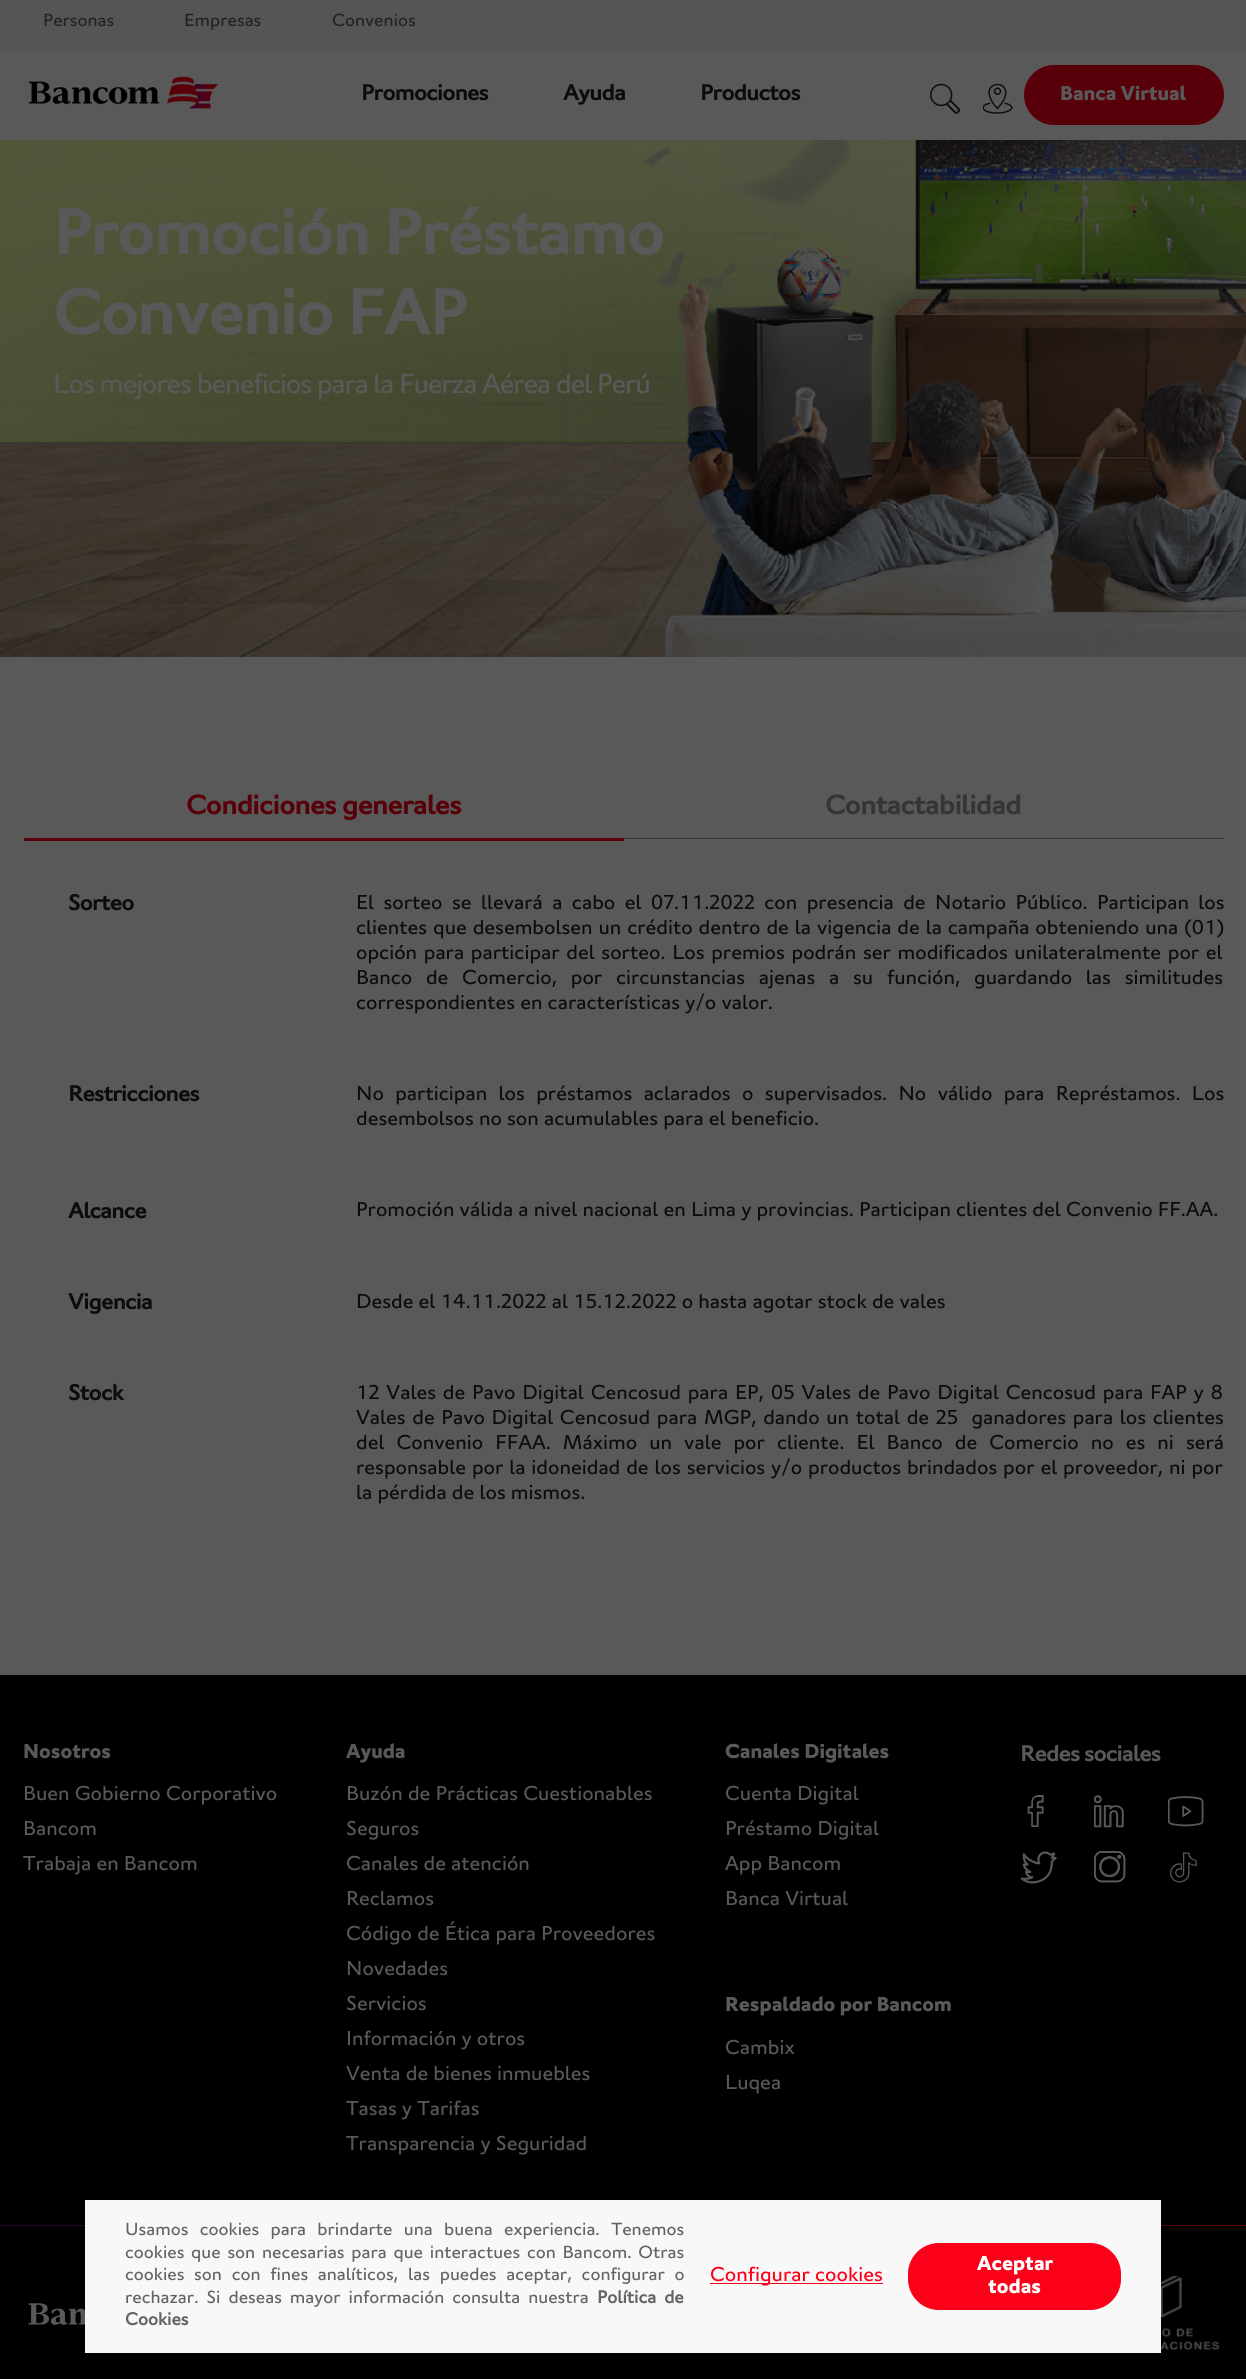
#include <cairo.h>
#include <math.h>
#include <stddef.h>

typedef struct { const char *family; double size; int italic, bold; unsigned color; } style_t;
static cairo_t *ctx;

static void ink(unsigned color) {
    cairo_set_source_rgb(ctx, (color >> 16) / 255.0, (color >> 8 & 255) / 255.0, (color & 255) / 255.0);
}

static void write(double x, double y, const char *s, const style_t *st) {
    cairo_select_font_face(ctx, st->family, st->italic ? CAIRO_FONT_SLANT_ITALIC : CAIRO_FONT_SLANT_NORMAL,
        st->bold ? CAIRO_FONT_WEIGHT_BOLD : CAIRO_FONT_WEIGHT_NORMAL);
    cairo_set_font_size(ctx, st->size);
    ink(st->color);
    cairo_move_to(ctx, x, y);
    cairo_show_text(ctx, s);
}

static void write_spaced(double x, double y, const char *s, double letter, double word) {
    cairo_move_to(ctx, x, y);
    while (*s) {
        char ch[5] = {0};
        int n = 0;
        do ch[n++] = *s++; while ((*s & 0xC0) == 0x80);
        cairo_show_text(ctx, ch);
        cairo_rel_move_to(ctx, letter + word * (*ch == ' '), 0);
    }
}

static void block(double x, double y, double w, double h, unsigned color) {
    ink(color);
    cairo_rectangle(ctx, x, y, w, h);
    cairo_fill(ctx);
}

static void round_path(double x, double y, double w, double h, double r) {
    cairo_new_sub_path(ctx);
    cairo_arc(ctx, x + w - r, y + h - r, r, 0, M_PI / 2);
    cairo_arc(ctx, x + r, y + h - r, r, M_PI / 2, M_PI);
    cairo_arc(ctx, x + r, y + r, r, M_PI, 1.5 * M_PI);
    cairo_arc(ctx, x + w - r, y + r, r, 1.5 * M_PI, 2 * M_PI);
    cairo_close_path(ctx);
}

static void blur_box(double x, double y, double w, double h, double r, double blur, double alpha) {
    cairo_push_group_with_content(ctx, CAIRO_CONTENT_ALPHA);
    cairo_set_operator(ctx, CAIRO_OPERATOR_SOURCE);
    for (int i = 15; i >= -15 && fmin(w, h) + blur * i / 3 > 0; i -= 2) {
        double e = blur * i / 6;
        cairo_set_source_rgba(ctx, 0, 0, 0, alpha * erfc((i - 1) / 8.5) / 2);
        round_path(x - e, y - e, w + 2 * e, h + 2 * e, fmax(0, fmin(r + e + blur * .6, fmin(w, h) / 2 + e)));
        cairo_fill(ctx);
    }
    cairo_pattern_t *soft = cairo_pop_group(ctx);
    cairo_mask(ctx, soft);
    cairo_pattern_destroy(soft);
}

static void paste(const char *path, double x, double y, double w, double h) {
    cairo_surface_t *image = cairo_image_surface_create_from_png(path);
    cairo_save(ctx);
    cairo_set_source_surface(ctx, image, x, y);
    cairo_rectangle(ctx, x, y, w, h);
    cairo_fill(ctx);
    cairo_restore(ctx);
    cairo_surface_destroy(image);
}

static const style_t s1 = {"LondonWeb", 17.5, 0, 0, 0x222222};
static const style_t s2 = {"LondonWeb", 20, 0, 1, 0x595959};
static const style_t s3 = {"LondonWeb", 20, 0, 0, 0x0c0c0c};
static const style_t s4 = {"LondonWeb", 20, 0, 0, 0x595959};
static const style_t s5 = {"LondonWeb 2", 17.5, 0, 1, 0x636363};
static const style_t s6 = {"LondonWeb", 20, 0, 0, 0xfb0019};
static const style_t s7 = {"LondonWeb", 20, 0, 1, 0xffffff};

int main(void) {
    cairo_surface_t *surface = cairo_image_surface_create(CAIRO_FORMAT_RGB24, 1246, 2379);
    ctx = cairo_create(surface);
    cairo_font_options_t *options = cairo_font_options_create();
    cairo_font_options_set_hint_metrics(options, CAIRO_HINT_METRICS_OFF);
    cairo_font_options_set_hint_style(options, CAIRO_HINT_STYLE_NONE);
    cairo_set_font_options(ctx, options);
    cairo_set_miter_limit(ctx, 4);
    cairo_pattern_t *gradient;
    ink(0x595959);
    cairo_paint(ctx);
    block(0, 0, 1246, 50, 0x555555);
    write(43, 26, "Personas", &s1);
    write(184, 26, "Empresas", &s1);
    write(332, 26, "Convenios", &s1);
    paste("pic1.png", 28, 76, 191, 33);
    cairo_select_font_face(ctx, "LondonWeb Medium", CAIRO_FONT_SLANT_NORMAL, CAIRO_FONT_WEIGHT_NORMAL);
    cairo_set_font_size(ctx, 22.5);
    ink(0x0c0c0c);
    write_spaced(361, 100, "Promociones", -1.25, 0);
    write_spaced(563, 100, "Ayuda", -1.25, 0);
    write_spaced(700, 100, "Productos", -1.25, 0);
    paste("pic2.png", 930, 83, 30, 31);
    paste("pic3.png", 983, 83, 30, 31);
    ink(0x580009);
    round_path(1024.5, 65.5, 199, 59, 29.5);
    cairo_fill_preserve(ctx);
    cairo_set_line_width(ctx, 1);
    cairo_stroke(ctx);
    write(1060, 100, "Banca Virtual", &s2);
    paste("pic4.png", 0, 140, 1246, 517);
    cairo_select_font_face(ctx, "LondonWeb Medium", CAIRO_FONT_SLANT_NORMAL, CAIRO_FONT_WEIGHT_NORMAL);
    cairo_set_font_size(ctx, 65);
    write_spaced(53, 254, "Promoción Préstamo", -2.5, 0);
    write_spaced(53, 334, "Convenio FAP", -2.5, 0);
    cairo_select_font_face(ctx, "LondonWeb", CAIRO_FONT_SLANT_NORMAL, CAIRO_FONT_WEIGHT_NORMAL);
    cairo_set_font_size(ctx, 27.5);
    write_spaced(53, 393, "Los mejores beneficios para la Fuerza Aérea del Perú", -1.25, 0);
    block(24, 838, 600, 3, 0x580009);
    cairo_select_font_face(ctx, "LondonWeb Medium", CAIRO_FONT_SLANT_NORMAL, CAIRO_FONT_WEIGHT_NORMAL);
    write_spaced(186, 814, "Condiciones generales", -1.25, 0);
    block(624, 838, 600, 1, 0x363535);
    write_spaced(825, 814, "Contactabilidad", -1.25, 0);
    cairo_set_font_size(ctx, 22.5);
    ink(0x0c0c0c);
    write_spaced(68, 910, "Sorteo", -1.25, 0);
    cairo_select_font_face(ctx, "LondonWeb", CAIRO_FONT_SLANT_NORMAL, CAIRO_FONT_WEIGHT_NORMAL);
    cairo_set_font_size(ctx, 20);
    write_spaced(356, 909, "El sorteo se llevará a cabo el 07.11.2022 con presencia de Notario Público. Participan los", 0, 4.25);
    write_spaced(356, 934, "clientes que desembolsen un crédito dentro de la vigencia de la campaña obteniendo una (01)", 0, 0.75);
    write_spaced(356, 959, "opción para participar del sorteo. Los premios podrán ser modificados unilateralmente por el", 0, 1.5);
    write_spaced(356, 984, "Banco de Comercio, por circunstancias ajenas a su función, guardando las similitudes", 0, 8.6);
    write(356, 1009, "correspondientes en características y/o valor.", &s3);
    cairo_select_font_face(ctx, "LondonWeb Medium", CAIRO_FONT_SLANT_NORMAL, CAIRO_FONT_WEIGHT_NORMAL);
    cairo_set_font_size(ctx, 22.5);
    write_spaced(68, 1101, "Restricciones", -1.25, 0);
    cairo_select_font_face(ctx, "LondonWeb", CAIRO_FONT_SLANT_NORMAL, CAIRO_FONT_WEIGHT_NORMAL);
    cairo_set_font_size(ctx, 20);
    write_spaced(356, 1100, "No participan los préstamos aclarados o supervisados. No válido para Représtamos. Los", 0, 6.25);
    write(356, 1125, "desembolsos no son acumulables para el beneficio.", &s3);
    cairo_select_font_face(ctx, "LondonWeb Medium", CAIRO_FONT_SLANT_NORMAL, CAIRO_FONT_WEIGHT_NORMAL);
    cairo_set_font_size(ctx, 22.5);
    write_spaced(68, 1218, "Alcance", -1.25, 0);
    write(356, 1216, "Promoción válida a nivel nacional en Lima y provincias. Participan clientes del Convenio FF.AA.", &s3);
    cairo_select_font_face(ctx, "LondonWeb Medium", CAIRO_FONT_SLANT_NORMAL, CAIRO_FONT_WEIGHT_NORMAL);
    cairo_set_font_size(ctx, 22.5);
    write_spaced(68, 1309, "Vigencia", -1.25, 0);
    write(356, 1308, "Desde el 14.11.2022 al 15.12.2022 o hasta agotar stock de vales", &s3);
    cairo_select_font_face(ctx, "LondonWeb Medium", CAIRO_FONT_SLANT_NORMAL, CAIRO_FONT_WEIGHT_NORMAL);
    cairo_set_font_size(ctx, 22.5);
    write_spaced(68, 1400, "Stock", -1.25, 0);
    cairo_select_font_face(ctx, "LondonWeb", CAIRO_FONT_SLANT_NORMAL, CAIRO_FONT_WEIGHT_NORMAL);
    cairo_set_font_size(ctx, 20);
    write_spaced(356, 1399, "12 Vales de Pavo Digital Cencosud para EP, 05 Vales de Pavo Digital Cencosud para FAP y 8", 0, 1.6);
    write_spaced(356, 1424, "Vales de Pavo Digital Cencosud para MGP, dando un total de 25  ganadores para los clientes", 0, 1.5);
    write_spaced(356, 1449, "del Convenio FFAA. Máximo un vale por cliente. El Banco de Comercio no es ni será", 0, 6.9);
    write_spaced(356, 1474, "responsable por la idoneidad de los servicios y/o productos brindados por el proveedor, ni por", 0, 0.75);
    write(356, 1499, "la pérdida de los mismos.", &s3);
    block(0, 1675, 1246, 704, 0x000000);
    write(23, 1758, "Nosotros", &s2);
    write(23, 1800, "Buen Gobierno Corporativo", &s4);
    write(23, 1835, "Bancom", &s4);
    write(23, 1870, "Trabaja en Bancom", &s4);
    write(346, 1758, "Ayuda", &s2);
    write(346, 1800, "Buzón de Prácticas Cuestionables", &s4);
    write(346, 1835, "Seguros", &s4);
    write(346, 1870, "Canales de atención", &s4);
    write(346, 1905, "Reclamos", &s4);
    write(346, 1940, "Código de Ética para Proveedores", &s4);
    write(346, 1975, "Novedades", &s4);
    write(346, 2010, "Servicios", &s4);
    write(346, 2045, "Información y otros", &s4);
    write(346, 2080, "Venta de bienes inmuebles", &s4);
    write(346, 2115, "Tasas y Tarifas", &s4);
    write(346, 2150, "Transparencia y Seguridad", &s4);
    write(725, 1758, "Canales Digitales", &s2);
    write(725, 1800, "Cuenta Digital", &s4);
    write(725, 1835, "Préstamo Digital", &s4);
    write(725, 1870, "App Bancom", &s4);
    write(725, 1905, "Banca Virtual", &s4);
    cairo_select_font_face(ctx, "LondonWeb Medium", CAIRO_FONT_SLANT_NORMAL, CAIRO_FONT_WEIGHT_NORMAL);
    cairo_set_font_size(ctx, 22.5);
    write_spaced(1020, 1761, "Redes sociales", -1.25, 0);
    paste("pic5.png", 1027, 1795, 17, 32);
    paste("pic6.png", 1094, 1795, 30, 33);
    paste("pic7.png", 1168, 1796, 36, 31);
    paste("pic8.png", 1020, 1851, 37, 33);
    paste("pic9.png", 1094, 1851, 32, 32);
    paste("pic10.png", 1170, 1852, 27, 31);
    write(725, 2011, "Respaldado por Bancom", &s2);
    write(725, 2054, "Cambix", &s4);
    write(725, 2089, "Luqea", &s4);
    gradient = cairo_pattern_create_linear(0, 2226, 1246, 2226);
    cairo_pattern_add_color_stop_rgba(gradient, 0, 0.137, 0.016, 0.243, 1);
    cairo_pattern_add_color_stop_rgba(gradient, 1, 0.345, 0, 0.035, 1);
    cairo_set_source(ctx, gradient);
    cairo_pattern_destroy(gradient);
    cairo_rectangle(ctx, 0, 2225, 1246, 1);
    cairo_fill(ctx);
    paste("pic11.png", 28, 2303, 57, 22);
    paste("pic12.png", 1161, 2276, 59, 74);
    ink(0x000000);
    blur_box(94, 2223, 1059, 135, 0, 9.5, 0.2);
    block(85, 2200, 1076, 153, 0xf8f8f8);
    cairo_set_font_size(ctx, 17.5);
    ink(0x636363);
    write_spaced(125, 2235, "Usamos cookies para brindarte una buena experiencia. Tenemos", 0, 6.9);
    write_spaced(125, 2258, "cookies que son necesarias para que interactues con Bancom. Otras", 0, 2.25);
    write_spaced(125, 2280, "cookies son con fines analíticos, las puedes aceptar, configurar o", 0, 5.25);
    write_spaced(125, 2303, "rechazar. Si deseas mayor información consulta nuestra", 0, 3.5);
    cairo_select_font_face(ctx, "LondonWeb 2", CAIRO_FONT_SLANT_NORMAL, CAIRO_FONT_WEIGHT_BOLD);
    write_spaced(597, 2303, "Política de", 0, 3.5);
    write(125, 2325, "Cookies", &s5);
    block(710, 2283, 173, 1, 0xfb0019);
    write(710, 2281, "Configurar cookies", &s6);
    round_path(908.5, 2243.5, 212, 66, 30.5);
    cairo_fill_preserve(ctx);
    cairo_stroke(ctx);
    write(977, 2270, "Aceptar", &s7);
    write(988, 2293, "todas", &s7);
    cairo_surface_write_to_png(surface, "screenshot.png");
    cairo_font_options_destroy(options);
    cairo_destroy(ctx);
    cairo_surface_destroy(surface);
    return 0;
}
